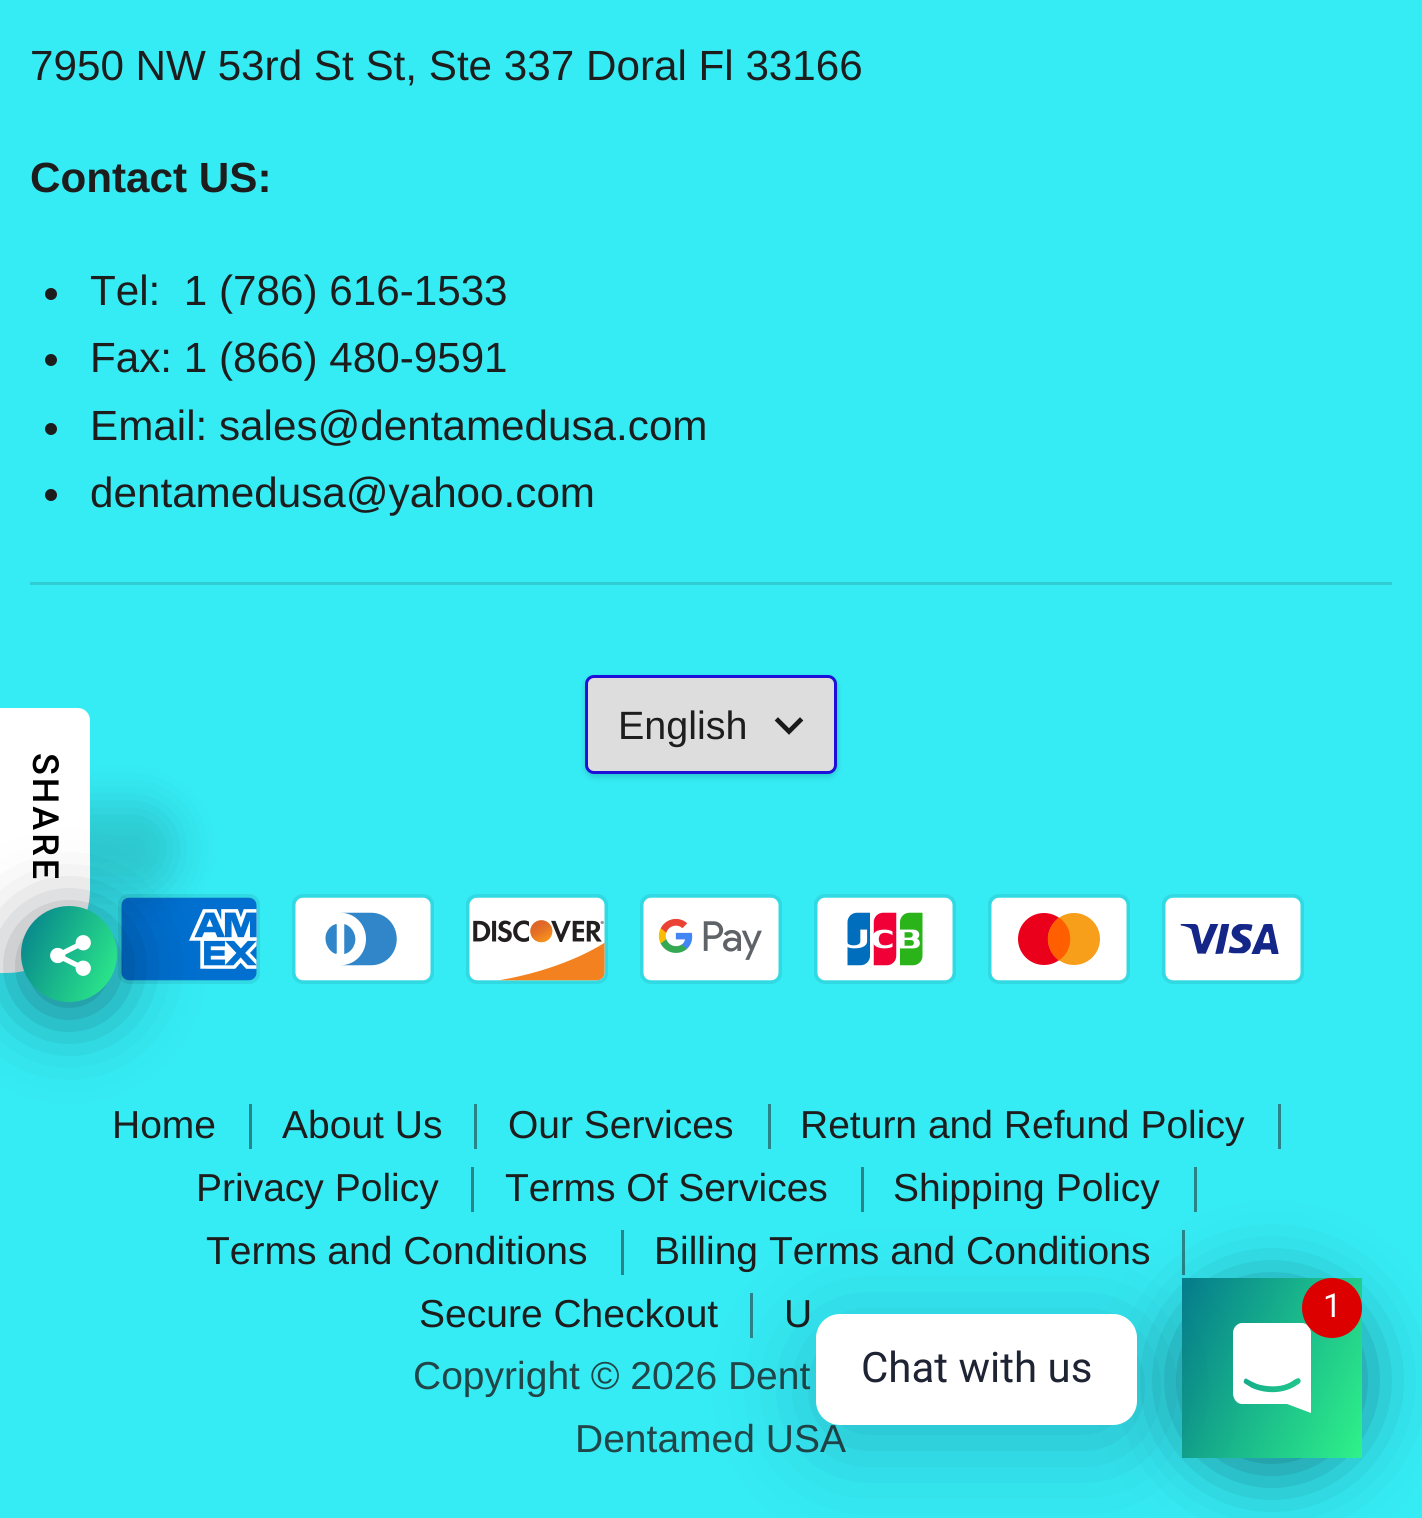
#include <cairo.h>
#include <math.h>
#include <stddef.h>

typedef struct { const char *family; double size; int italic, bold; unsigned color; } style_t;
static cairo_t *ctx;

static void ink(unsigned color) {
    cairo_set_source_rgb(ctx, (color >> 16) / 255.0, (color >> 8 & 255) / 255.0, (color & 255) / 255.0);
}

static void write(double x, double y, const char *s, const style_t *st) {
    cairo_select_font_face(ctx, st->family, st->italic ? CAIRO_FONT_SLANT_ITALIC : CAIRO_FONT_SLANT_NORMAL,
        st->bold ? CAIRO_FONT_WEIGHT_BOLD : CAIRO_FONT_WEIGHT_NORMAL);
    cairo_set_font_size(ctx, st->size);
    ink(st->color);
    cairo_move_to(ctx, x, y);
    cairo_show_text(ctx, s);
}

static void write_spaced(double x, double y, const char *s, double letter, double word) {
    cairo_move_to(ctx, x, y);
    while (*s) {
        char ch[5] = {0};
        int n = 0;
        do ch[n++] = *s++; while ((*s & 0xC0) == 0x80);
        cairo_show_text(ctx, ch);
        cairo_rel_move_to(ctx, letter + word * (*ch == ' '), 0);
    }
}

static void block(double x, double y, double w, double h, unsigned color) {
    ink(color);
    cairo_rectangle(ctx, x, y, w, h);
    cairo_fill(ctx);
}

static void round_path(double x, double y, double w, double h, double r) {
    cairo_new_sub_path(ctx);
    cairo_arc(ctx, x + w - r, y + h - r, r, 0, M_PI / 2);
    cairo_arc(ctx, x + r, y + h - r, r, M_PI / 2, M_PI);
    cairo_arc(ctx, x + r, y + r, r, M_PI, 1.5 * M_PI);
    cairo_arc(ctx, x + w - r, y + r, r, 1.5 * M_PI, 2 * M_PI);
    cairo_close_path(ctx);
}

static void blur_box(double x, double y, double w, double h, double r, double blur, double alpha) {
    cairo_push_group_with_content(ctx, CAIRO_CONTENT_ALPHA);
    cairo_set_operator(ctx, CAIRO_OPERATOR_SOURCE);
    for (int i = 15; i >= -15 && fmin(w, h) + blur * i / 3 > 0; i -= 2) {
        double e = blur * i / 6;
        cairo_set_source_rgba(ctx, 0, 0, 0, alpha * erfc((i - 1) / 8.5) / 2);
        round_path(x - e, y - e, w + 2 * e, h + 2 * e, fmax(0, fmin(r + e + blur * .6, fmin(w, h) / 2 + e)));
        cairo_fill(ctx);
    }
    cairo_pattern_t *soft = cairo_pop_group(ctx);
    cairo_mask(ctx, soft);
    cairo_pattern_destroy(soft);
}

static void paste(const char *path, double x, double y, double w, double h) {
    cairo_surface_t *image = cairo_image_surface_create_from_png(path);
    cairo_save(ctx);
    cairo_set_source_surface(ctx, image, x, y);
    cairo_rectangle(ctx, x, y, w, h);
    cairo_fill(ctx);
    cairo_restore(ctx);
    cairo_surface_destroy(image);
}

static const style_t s1 = {"Liberation Sans", 42.2, 0, 0, 0x1d1d1d};
static const style_t s2 = {"Liberation Sans", 42.2, 0, 1, 0x1d1d1d};
static const style_t s3 = {"Liberation Sans", 39.5, 0, 0, 0x1d1d1d};
static const style_t s4 = {"Liberation Sans", 39, 0, 0, 0x1d1d1d};
static const style_t s5 = {"Liberation Sans", 39, 0, 0, 0x224648};
static const style_t s6 = {"Roboto", 33, 0, 0, 0xffffff};
static const style_t s7 = {"Roboto", 42, 0, 0, 0x1e2433};

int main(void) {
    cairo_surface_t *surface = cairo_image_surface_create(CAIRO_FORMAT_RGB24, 1422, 1518);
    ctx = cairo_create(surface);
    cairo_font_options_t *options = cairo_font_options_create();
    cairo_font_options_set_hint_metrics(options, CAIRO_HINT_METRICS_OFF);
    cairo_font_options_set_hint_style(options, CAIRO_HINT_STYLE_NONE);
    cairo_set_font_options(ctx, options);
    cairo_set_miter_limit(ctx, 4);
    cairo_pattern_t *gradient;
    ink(0x35ebf4);
    cairo_paint(ctx);
    block(30, 582, 1362, 3, 0x31ccd4);
    write(30, 80, "7950 NW 53rd St St, Ste 337 Doral Fl 33166", &s1);
    write(30, 192, "Contact US:", &s2);
    cairo_new_path(ctx);
    cairo_arc(ctx, 51, 294, 6, 0, 2 * M_PI);
    cairo_fill(ctx);
    write(90, 305, "Tel:  1 (786) 616-1533", &s1);
    cairo_new_path(ctx);
    cairo_arc(ctx, 51, 360, 6, 0, 2 * M_PI);
    cairo_fill(ctx);
    write(90, 372, "Fax: 1 (866) 480-9591", &s1);
    cairo_new_path(ctx);
    cairo_arc(ctx, 51, 429, 6, 0, 2 * M_PI);
    cairo_fill(ctx);
    write(90, 440, "Email: sales@dentamedusa.com", &s1);
    cairo_new_path(ctx);
    cairo_arc(ctx, 51, 495, 6, 0, 2 * M_PI);
    cairo_fill(ctx);
    write(90, 507, "dentamedusa@yahoo.com", &s1);
    ink(0x000000);
    blur_box(585, 678, 252, 99, 9, 3, 0.15);
    ink(0xdddddd);
    round_path(586.5, 676.5, 249, 96, 7.5);
    cairo_fill_preserve(ctx);
    ink(0x1c10d9);
    cairo_set_line_width(ctx, 3);
    cairo_stroke(ctx);
    write(618, 739, "English", &s3);
    cairo_new_path(ctx);
    cairo_move_to(ctx, 789, 731.5);
    cairo_line_to(ctx, 800, 720.5);
    cairo_move_to(ctx, 789, 731.5);
    cairo_line_to(ctx, 778, 720.5);
    ink(0x1b1a1a);
    cairo_set_line_width(ctx, 4.7);
    cairo_set_line_cap(ctx, CAIRO_LINE_CAP_SQUARE);
    cairo_stroke(ctx);
    paste("pic1.png", 118, 894, 142, 90);
    paste("pic2.png", 292, 894, 142, 90);
    paste("pic3.png", 466, 894, 142, 90);
    paste("pic4.png", 640, 894, 142, 90);
    paste("pic5.png", 814, 894, 142, 90);
    paste("pic6.png", 988, 894, 142, 90);
    paste("pic7.png", 1162, 894, 142, 90);
    block(249, 1104, 3, 45, 0x298489);
    write(112, 1138, "Home", &s4);
    block(474, 1104, 3, 45, 0x298489);
    write(282, 1138, "About Us", &s4);
    block(768, 1104, 3, 45, 0x298489);
    write(508, 1138, "Our Services", &s4);
    block(1278, 1104, 3, 45, 0x298489);
    write(800, 1138, "Return and Refund Policy", &s4);
    block(471, 1167, 3, 45, 0x298489);
    write(196, 1201, "Privacy Policy", &s4);
    block(861, 1167, 3, 45, 0x298489);
    write(505, 1201, "Terms Of Services", &s4);
    block(1194, 1167, 3, 45, 0x298489);
    write(893, 1201, "Shipping Policy", &s4);
    block(621, 1230, 3, 45, 0x298489);
    write(206, 1264, "Terms and Conditions", &s4);
    block(1182, 1230, 3, 45, 0x298489);
    write(654, 1264, "Billing Terms and Conditions", &s4);
    block(750, 1293, 3, 45, 0x298489);
    write(419, 1327, "Secure Checkout", &s4);
    write(784, 1327, "U", &s4);
    write(413, 1389, "Copyright © 2026 Dent", &s5);
    write(575, 1452, "Dentamed USA", &s5);
    ink(0x000000);
    blur_box(-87, 804, 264, 90, 84, 21, 0.15);
    ink(0xffffff);
    cairo_new_path(ctx);
    cairo_move_to(ctx, 0, 973);
    cairo_line_to(ctx, 0, 708);
    cairo_line_to(ctx, 78, 708);
    cairo_curve_to(ctx, 85, 708, 90, 714, 90, 720);
    cairo_line_to(ctx, 90, 889);
    cairo_curve_to(ctx, 90, 935, 52, 973, 6, 973);
    cairo_close_path(ctx);
    cairo_fill(ctx);
    cairo_select_font_face(ctx, "Roboto Medium", CAIRO_FONT_SLANT_NORMAL, CAIRO_FONT_WEIGHT_NORMAL);
    cairo_set_font_size(ctx, 36);
    ink(0x000000);
    cairo_save(ctx);
    cairo_translate(ctx, 33, 753);
    cairo_rotate(ctx, 90 * M_PI / 180);
    write_spaced(0, 0, "SHARE", 3, 0);
    cairo_restore(ctx);
    ink(0x020610);
    blur_box(21, 918, 96, 96, 48, 36, 0.5);
    gradient = cairo_pattern_create_linear(11, 927, 127, 981);
    cairo_pattern_add_color_stop_rgba(gradient, 0, 0.016, 0.486, 0.553, 1);
    cairo_pattern_add_color_stop_rgba(gradient, 1, 0.184, 0.949, 0.537, 1);
    cairo_set_source(ctx, gradient);
    cairo_pattern_destroy(gradient);
    cairo_arc(ctx, 69, 954, 48, 0, 2 * M_PI);
    cairo_fill(ctx);
    paste("pic8.png", 50, 935, 41, 41);
    ink(0x020610);
    blur_box(1182, 1290, 180, 180, 90, 36, 0.5);
    gradient = cairo_pattern_create_linear(1164, 1317, 1380, 1419);
    cairo_pattern_add_color_stop_rgba(gradient, 0, 0.016, 0.486, 0.553, 1);
    cairo_pattern_add_color_stop_rgba(gradient, 1, 0.184, 0.949, 0.537, 1);
    cairo_set_source(ctx, gradient);
    cairo_pattern_destroy(gradient);
    cairo_rectangle(ctx, 1182, 1278, 180, 180);
    cairo_fill(ctx);
    ink(0x00122e);
    blur_box(816, 1332, 321, 111, 24, 48, 0.24);
    ink(0xffffff);
    cairo_new_path(ctx);
    cairo_move_to(ctx, 1311, 1413);
    cairo_line_to(ctx, 1287, 1404);
    cairo_line_to(ctx, 1242, 1404);
    cairo_curve_to(ctx, 1237, 1404, 1233, 1399, 1233, 1393);
    cairo_line_to(ctx, 1233, 1333);
    cairo_curve_to(ctx, 1233, 1328, 1237, 1323, 1242, 1323);
    cairo_line_to(ctx, 1302, 1323);
    cairo_curve_to(ctx, 1307, 1323, 1311, 1328, 1311, 1333);
    cairo_close_path(ctx);
    cairo_move_to(ctx, 1300, 1379);
    cairo_curve_to(ctx, 1298, 1377, 1296, 1379, 1294, 1380);
    cairo_curve_to(ctx, 1286, 1386, 1276, 1387, 1267, 1386);
    cairo_curve_to(ctx, 1258, 1385, 1254, 1383, 1247, 1379);
    cairo_curve_to(ctx, 1245, 1377, 1243, 1381, 1244, 1383);
    cairo_line_to(ctx, 1252, 1388);
    cairo_curve_to(ctx, 1266, 1394, 1284, 1394, 1297, 1385);
    cairo_curve_to(ctx, 1299, 1384, 1302, 1382, 1300, 1379);
    cairo_close_path(ctx);
    cairo_fill(ctx);
    ink(0xdd0000);
    cairo_arc(ctx, 1332, 1308, 30, 0, 2 * M_PI);
    cairo_fill(ctx);
    write(1323, 1317, "1", &s6);
    round_path(816, 1314, 321, 111, 24);
    cairo_fill(ctx);
    write(861, 1382, "Chat with us", &s7);
    cairo_surface_write_to_png(surface, "screenshot.png");
    cairo_font_options_destroy(options);
    cairo_destroy(ctx);
    cairo_surface_destroy(surface);
    return 0;
}
